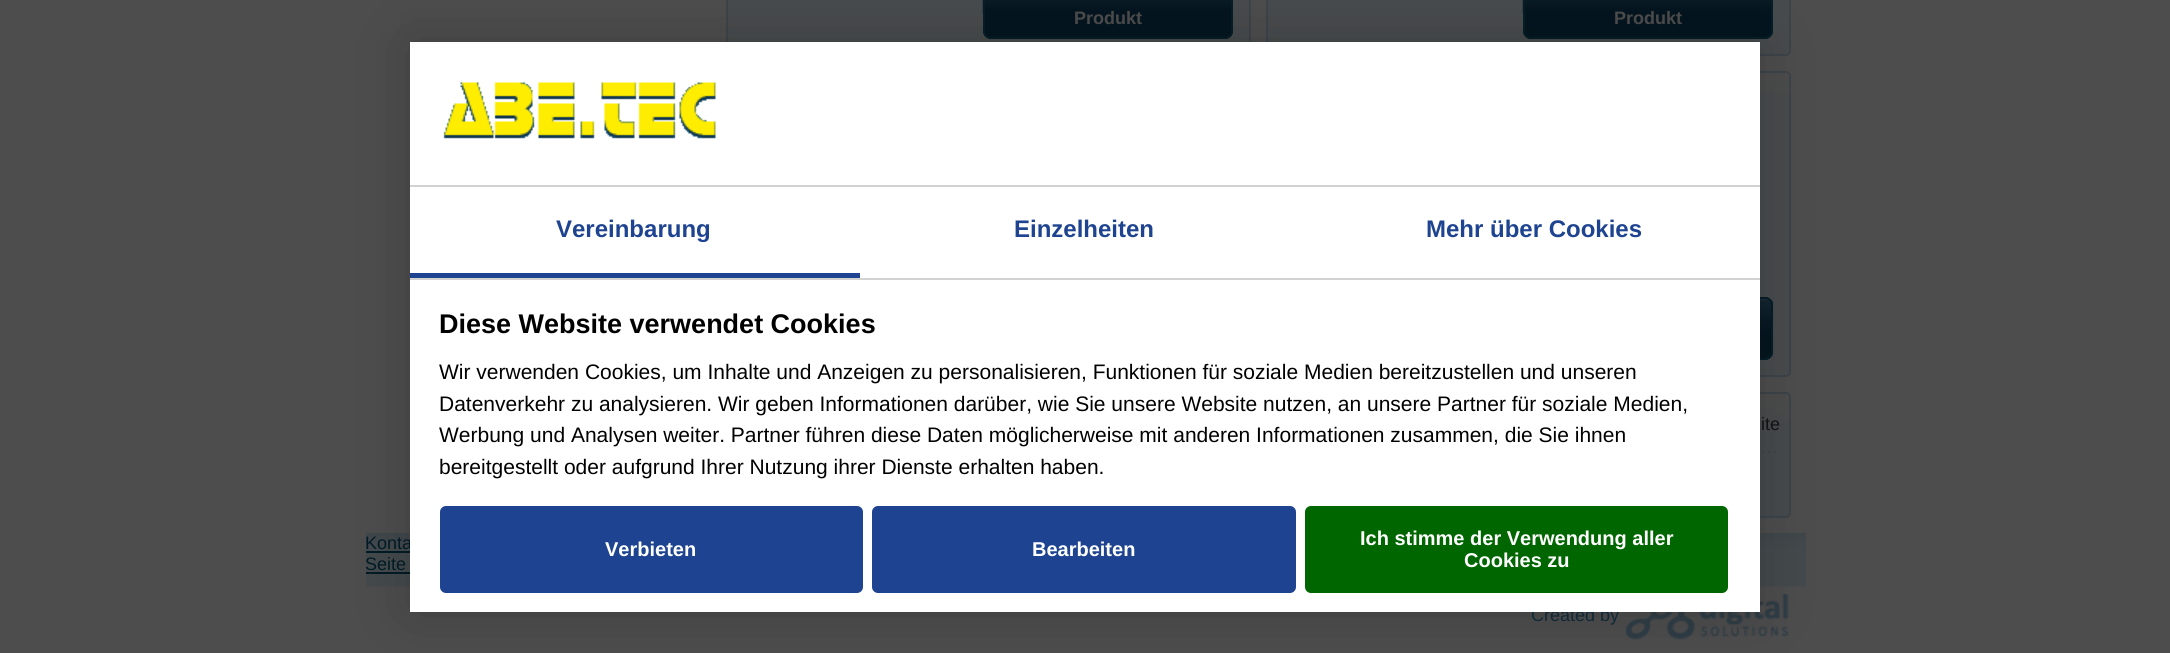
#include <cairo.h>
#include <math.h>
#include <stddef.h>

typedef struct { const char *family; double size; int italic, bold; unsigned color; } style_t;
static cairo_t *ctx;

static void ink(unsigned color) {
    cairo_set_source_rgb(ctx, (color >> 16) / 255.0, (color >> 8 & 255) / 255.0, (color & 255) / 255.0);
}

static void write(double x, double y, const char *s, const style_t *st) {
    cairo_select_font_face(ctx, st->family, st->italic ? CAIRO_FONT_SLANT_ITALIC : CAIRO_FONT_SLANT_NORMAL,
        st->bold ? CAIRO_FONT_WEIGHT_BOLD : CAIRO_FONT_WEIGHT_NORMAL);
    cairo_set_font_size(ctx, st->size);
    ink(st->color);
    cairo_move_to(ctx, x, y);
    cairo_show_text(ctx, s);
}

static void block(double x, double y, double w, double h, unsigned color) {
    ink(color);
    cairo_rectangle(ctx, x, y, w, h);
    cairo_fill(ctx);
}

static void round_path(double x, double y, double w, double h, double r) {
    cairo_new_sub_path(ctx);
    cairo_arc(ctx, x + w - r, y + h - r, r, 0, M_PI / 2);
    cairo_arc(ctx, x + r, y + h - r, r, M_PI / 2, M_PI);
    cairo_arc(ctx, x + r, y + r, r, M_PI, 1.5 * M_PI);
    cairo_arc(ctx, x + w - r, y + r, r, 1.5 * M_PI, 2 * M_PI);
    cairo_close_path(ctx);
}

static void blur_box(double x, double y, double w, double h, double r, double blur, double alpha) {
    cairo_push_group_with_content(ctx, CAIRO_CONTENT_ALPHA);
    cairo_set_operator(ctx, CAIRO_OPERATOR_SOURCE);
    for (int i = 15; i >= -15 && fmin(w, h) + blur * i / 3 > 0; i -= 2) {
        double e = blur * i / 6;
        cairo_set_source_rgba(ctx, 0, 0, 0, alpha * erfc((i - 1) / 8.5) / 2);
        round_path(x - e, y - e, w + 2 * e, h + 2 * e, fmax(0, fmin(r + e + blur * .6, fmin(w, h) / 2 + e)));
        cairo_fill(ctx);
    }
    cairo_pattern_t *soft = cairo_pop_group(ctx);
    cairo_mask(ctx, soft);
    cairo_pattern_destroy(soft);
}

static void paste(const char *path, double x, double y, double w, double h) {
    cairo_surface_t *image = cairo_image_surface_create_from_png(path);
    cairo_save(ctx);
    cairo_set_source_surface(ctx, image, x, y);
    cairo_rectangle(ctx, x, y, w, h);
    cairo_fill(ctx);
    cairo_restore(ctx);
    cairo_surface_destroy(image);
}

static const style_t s1 = {"Liberation Sans", 18, 0, 1, 0x4d4d4d};
static const style_t s2 = {"Liberation Sans", 18, 0, 0, 0x121315};
static const style_t s3 = {"Liberation Sans", 18, 0, 0, 0x001b26};
static const style_t s4 = {"Liberation Sans", 18, 0, 0, 0x112b3b};
static const style_t s5 = {"Liberation Sans", 24, 0, 1, 0x1e4491};
static const style_t s6 = {"Liberation Sans", 27, 0, 1, 0x000000};
static const style_t s7 = {"Liberation Sans", 21, 0, 0, 0x000000};
static const style_t s8 = {"Liberation Sans", 20, 0, 1, 0xffffff};

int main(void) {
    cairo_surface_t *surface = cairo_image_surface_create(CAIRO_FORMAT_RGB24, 2170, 653);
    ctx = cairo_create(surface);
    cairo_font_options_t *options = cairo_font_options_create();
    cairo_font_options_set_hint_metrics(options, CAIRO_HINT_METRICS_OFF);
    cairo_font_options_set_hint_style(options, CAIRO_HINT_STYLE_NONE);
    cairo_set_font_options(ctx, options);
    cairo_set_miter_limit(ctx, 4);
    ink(0x4d4d4d);
    cairo_paint(ctx);
    paste("pic7.png", 366, 532, 1440, 55);
    ink(0x4d4d4d);
    round_path(366, -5, 1440, 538, 5);
    cairo_fill(ctx);
    block(728, 0, 521, 42, 0x484b4d);
    cairo_rectangle(ctx, 727, -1, 523, 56);
    ink(0x3c444a);
    cairo_stroke(ctx);
    ink(0x04151f);
    round_path(983, -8, 250, 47, 8);
    cairo_fill(ctx);
    paste("pic1.png", 982, 0, 249, 14);
    round_path(984, -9, 248, 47, 7);
    ink(0x051e28);
    cairo_stroke(ctx);
    write(1074, 24, "Produkt", &s1);
    ink(0x484b4d);
    round_path(1267, -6, 523, 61, 4);
    cairo_fill_preserve(ctx);
    ink(0x3c444a);
    cairo_stroke(ctx);
    ink(0x04151f);
    round_path(1523, -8, 250, 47, 8);
    cairo_fill(ctx);
    paste("pic2.png", 1522, 0, 249, 14);
    round_path(1524, -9, 248, 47, 7);
    ink(0x051e28);
    cairo_stroke(ctx);
    write(1614, 24, "Produkt", &s1);
    ink(0x484b4d);
    round_path(1266, 71, 525, 306, 5);
    cairo_fill(ctx);
    paste("pic3.png", 1760, 72, 31, 21);
    round_path(1267, 72, 523, 304, 4);
    ink(0x3c444a);
    cairo_stroke(ctx);
    ink(0x04151f);
    round_path(1523, 297, 250, 63, 8);
    cairo_fill(ctx);
    paste("pic4.png", 1760, 298, 13, 37);
    round_path(1524, 298, 248, 61, 7);
    ink(0x051e28);
    cairo_stroke(ctx);
    ink(0x474a4d);
    round_path(726, 392, 1065, 126, 5);
    cairo_fill(ctx);
    paste("pic5.png", 1760, 393, 31, 30);
    round_path(727, 393, 1063, 124, 4);
    ink(0x3c444a);
    cairo_stroke(ctx);
    write(1761, 430, "ite", &s2);
    paste("pic6.png", 1762, 451, 19, 2);
    write(365, 549, "Konta", &s3);
    block(366, 551, 44, 2, 0x001b26);
    write(365, 570, "Seite", &s3);
    block(366, 572, 44, 2, 0x001b26);
    write(1531, 621, "Created by", &s4);
    paste("pic8.png", 1625, 593, 164, 47);
    ink(0x000000);
    blur_box(410, 42, 1350, 570, 0, 30, 0.2);
    block(410, 42, 1350, 570, 0xffffff);
    block(410, 185, 1350, 2, 0xd2d2d2);
    paste("pic9.png", 443, 82, 273, 57);
    block(410, 278, 1350, 2, 0xd2d2d2);
    block(410, 273, 450, 5, 0x1e4491);
    write(556, 237, "Vereinbarung", &s5);
    write(1014, 237, "Einzelheiten", &s5);
    write(1426, 237, "Mehr über Cookies", &s5);
    write(439, 333, "Diese Website verwendet Cookies", &s6);
    write(439, 379, "Wir verwenden Cookies, um Inhalte und Anzeigen zu personalisieren, Funktionen für soziale Medien bereitzustellen und unseren", &s7);
    write(439, 411, "Datenverkehr zu analysieren. Wir geben Informationen darüber, wie Sie unsere Website nutzen, an unsere Partner für soziale Medien,", &s7);
    write(439, 442, "Werbung und Analysen weiter. Partner führen diese Daten möglicherweise mit anderen Informationen zusammen, die Sie ihnen", &s7);
    write(439, 474, "bereitgestellt oder aufgrund Ihrer Nutzung ihrer Dienste erhalten haben.", &s7);
    ink(0x1e4491);
    round_path(440, 506, 423, 87, 6);
    cairo_fill(ctx);
    write(605, 556, "Verbieten", &s8);
    ink(0x1e4491);
    round_path(872, 506, 424, 87, 6);
    cairo_fill(ctx);
    write(1032, 556, "Bearbeiten", &s8);
    ink(0x006600);
    round_path(1305, 506, 423, 87, 6);
    cairo_fill(ctx);
    write(1360, 545, "Ich stimme der Verwendung aller", &s8);
    write(1464, 567, "Cookies zu", &s8);
    cairo_surface_write_to_png(surface, "screenshot.png");
    cairo_font_options_destroy(options);
    cairo_destroy(ctx);
    cairo_surface_destroy(surface);
    return 0;
}
